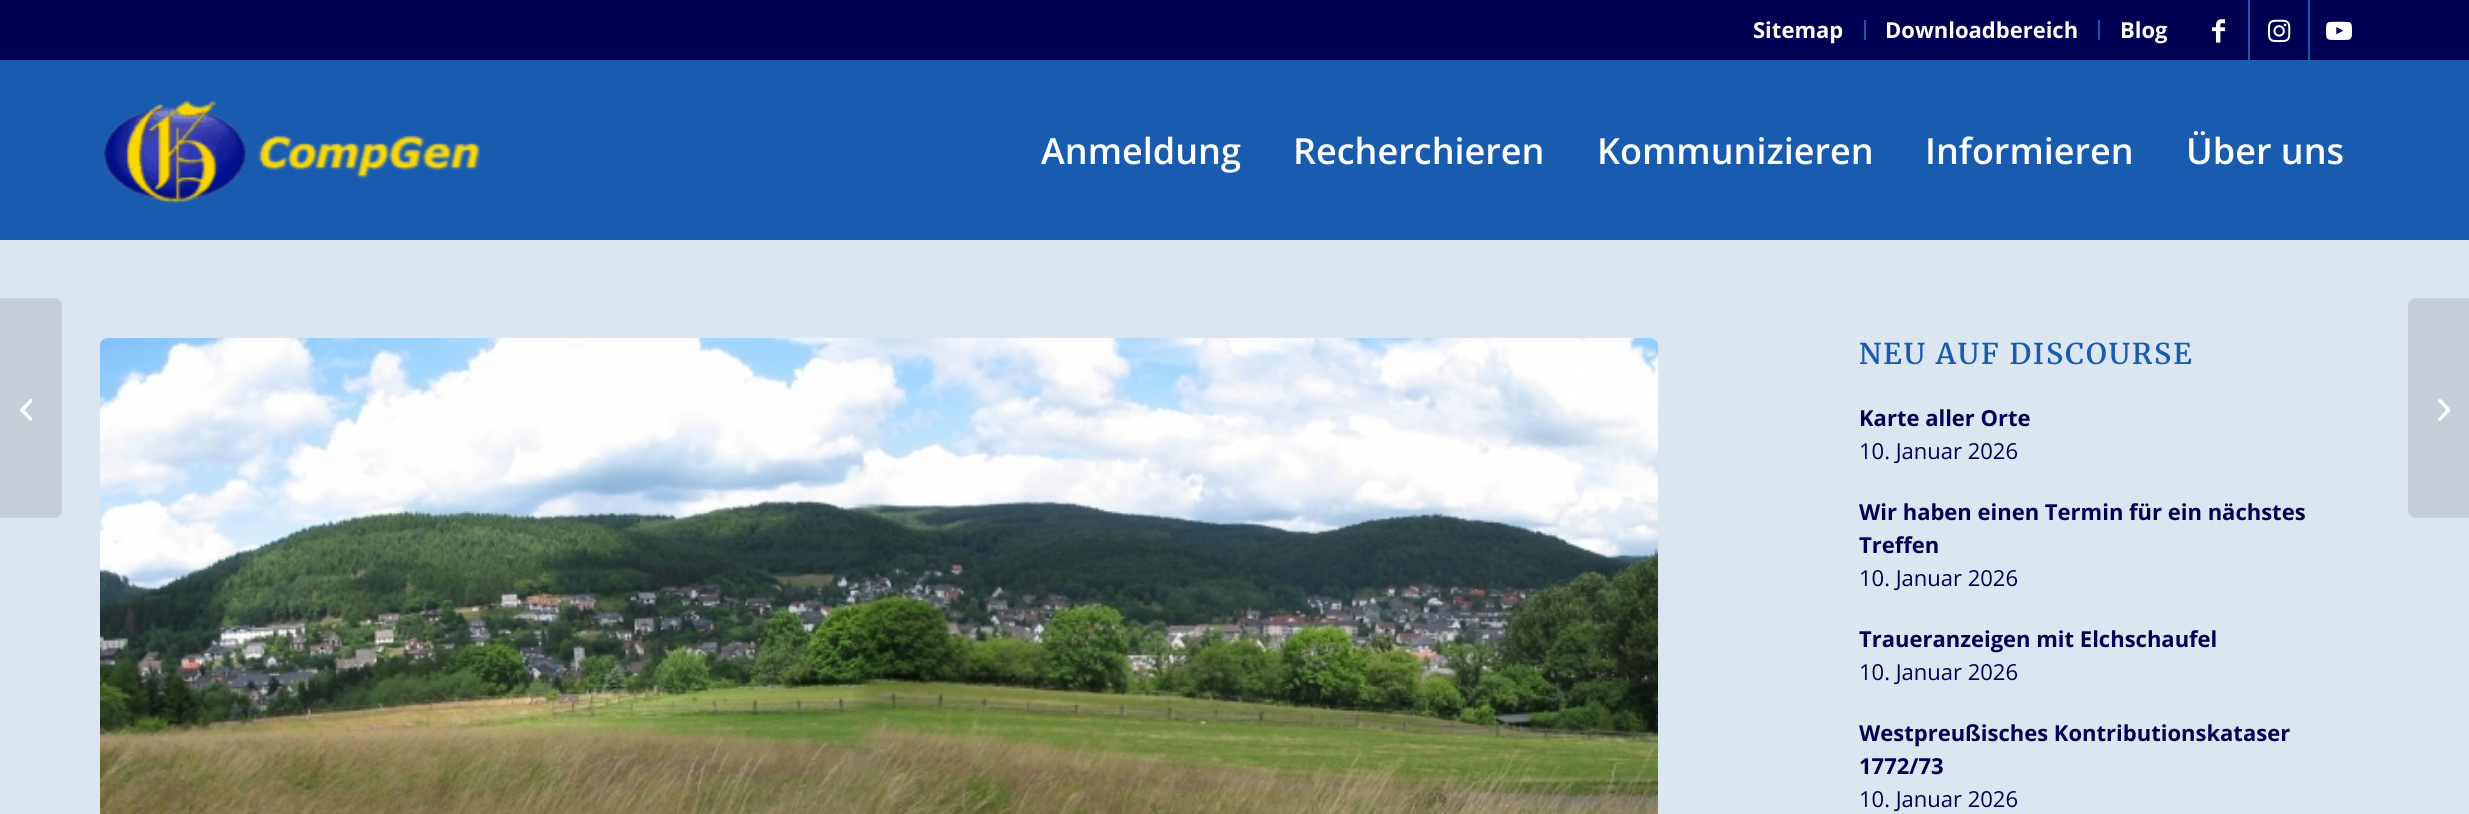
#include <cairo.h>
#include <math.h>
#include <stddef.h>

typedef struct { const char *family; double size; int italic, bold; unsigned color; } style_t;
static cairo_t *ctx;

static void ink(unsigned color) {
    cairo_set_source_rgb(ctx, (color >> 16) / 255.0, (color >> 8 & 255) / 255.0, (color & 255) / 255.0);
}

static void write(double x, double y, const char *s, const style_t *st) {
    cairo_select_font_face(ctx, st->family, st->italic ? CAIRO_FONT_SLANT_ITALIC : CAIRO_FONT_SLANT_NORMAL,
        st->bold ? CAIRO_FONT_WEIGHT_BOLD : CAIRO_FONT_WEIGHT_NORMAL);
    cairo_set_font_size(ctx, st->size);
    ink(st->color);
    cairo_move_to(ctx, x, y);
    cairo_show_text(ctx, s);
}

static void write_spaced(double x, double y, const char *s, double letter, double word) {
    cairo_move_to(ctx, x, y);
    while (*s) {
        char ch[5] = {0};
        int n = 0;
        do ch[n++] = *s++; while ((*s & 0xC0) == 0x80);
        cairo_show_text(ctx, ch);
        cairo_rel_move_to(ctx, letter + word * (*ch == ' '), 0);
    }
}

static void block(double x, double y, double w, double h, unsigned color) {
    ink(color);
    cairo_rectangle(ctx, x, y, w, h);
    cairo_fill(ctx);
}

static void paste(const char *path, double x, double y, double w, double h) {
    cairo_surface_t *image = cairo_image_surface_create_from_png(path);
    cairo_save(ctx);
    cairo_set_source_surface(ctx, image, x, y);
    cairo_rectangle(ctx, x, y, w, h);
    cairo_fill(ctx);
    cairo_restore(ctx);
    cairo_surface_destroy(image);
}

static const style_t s1 = {"Open Sans", 22, 0, 1, 0xffffff};
static const style_t s2 = {"Open Sans SemiBold", 36, 0, 0, 0xffffff};
static const style_t s3 = {"Open Sans", 22, 0, 1, 0x000052};
static const style_t s4 = {"Open Sans", 22, 0, 0, 0x000052};

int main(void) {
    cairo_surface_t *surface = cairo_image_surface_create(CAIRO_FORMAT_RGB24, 2469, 814);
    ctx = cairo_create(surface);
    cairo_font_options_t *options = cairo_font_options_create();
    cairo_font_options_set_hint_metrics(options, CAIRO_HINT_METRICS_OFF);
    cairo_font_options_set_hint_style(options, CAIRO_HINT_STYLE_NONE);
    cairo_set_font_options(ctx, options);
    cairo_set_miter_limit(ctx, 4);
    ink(0xdce6f0);
    cairo_paint(ctx);
    block(0, 0, 2469, 60, 0x000052);
    block(1864, 20, 2, 20, 0x195caf);
    write(1753, 38, "Sitemap", &s1);
    block(2098, 20, 2, 20, 0x195caf);
    write(1885, 38, "Downloadbereich", &s1);
    write(2120, 38, "Blog", &s1);
    block(2248, 0, 2, 60, 0x195caf);
    paste("pic1.png", 2212, 19, 13, 24);
    block(2308, 0, 2, 60, 0x195caf);
    paste("pic2.png", 2268, 19, 23, 24);
    paste("pic3.png", 2326, 21, 26, 20);
    block(0, 60, 2469, 180, 0x195caf);
    paste("pic4.png", 102, 100, 379, 104);
    write(1041, 164, "Anmeldung", &s2);
    write(1293, 164, "Recherchieren", &s2);
    write(1597, 164, "Kommunizieren", &s2);
    write(1925, 164, "Informieren", &s2);
    write(2186, 164, "Über uns", &s2);
    ink(0xc6cfd8);
    cairo_new_path(ctx);
    cairo_move_to(ctx, 0, 298);
    cairo_line_to(ctx, 54, 298);
    cairo_curve_to(ctx, 58.5, 298, 62, 301.5, 62, 306);
    cairo_line_to(ctx, 62, 510);
    cairo_curve_to(ctx, 62, 514.5, 58.5, 518, 54, 518);
    cairo_line_to(ctx, 0, 518);
    cairo_close_path(ctx);
    cairo_fill(ctx);
    paste("pic5.png", 20, 398, 12, 23);
    paste("pic6.png", 100, 338, 1558, 476);
    cairo_select_font_face(ctx, "Merriweather SemiBold", CAIRO_FONT_SLANT_NORMAL, CAIRO_FONT_WEIGHT_NORMAL);
    cairo_set_font_size(ctx, 28.6);
    ink(0x195caf);
    write_spaced(1859, 364, "NEU AUF DISCOURSE", 2, 0);
    write(1859, 426, "Karte aller Orte", &s3);
    write(1859, 459, "10. Januar 2026", &s4);
    write(1859, 520, "Wir haben einen Termin für ein nächstes", &s3);
    write(1859, 553, "Treffen", &s3);
    write(1859, 586, "10. Januar 2026", &s4);
    write(1859, 647, "Traueranzeigen mit Elchschaufel", &s3);
    write(1859, 680, "10. Januar 2026", &s4);
    write(1859, 741, "Westpreußisches Kontributionskataser", &s3);
    write(1859, 774, "1772/73", &s3);
    write(1859, 807, "10. Januar 2026", &s4);
    ink(0xc6cfd8);
    cairo_new_path(ctx);
    cairo_move_to(ctx, 2416, 298);
    cairo_line_to(ctx, 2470, 298);
    cairo_line_to(ctx, 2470, 518);
    cairo_line_to(ctx, 2416, 518);
    cairo_curve_to(ctx, 2411.5, 518, 2408, 514.5, 2408, 510);
    cairo_line_to(ctx, 2408, 306);
    cairo_curve_to(ctx, 2408, 301.5, 2411.5, 298, 2416, 298);
    cairo_close_path(ctx);
    cairo_fill(ctx);
    paste("pic7.png", 2438, 398, 12, 23);
    cairo_surface_write_to_png(surface, "screenshot.png");
    cairo_font_options_destroy(options);
    cairo_destroy(ctx);
    cairo_surface_destroy(surface);
    return 0;
}
